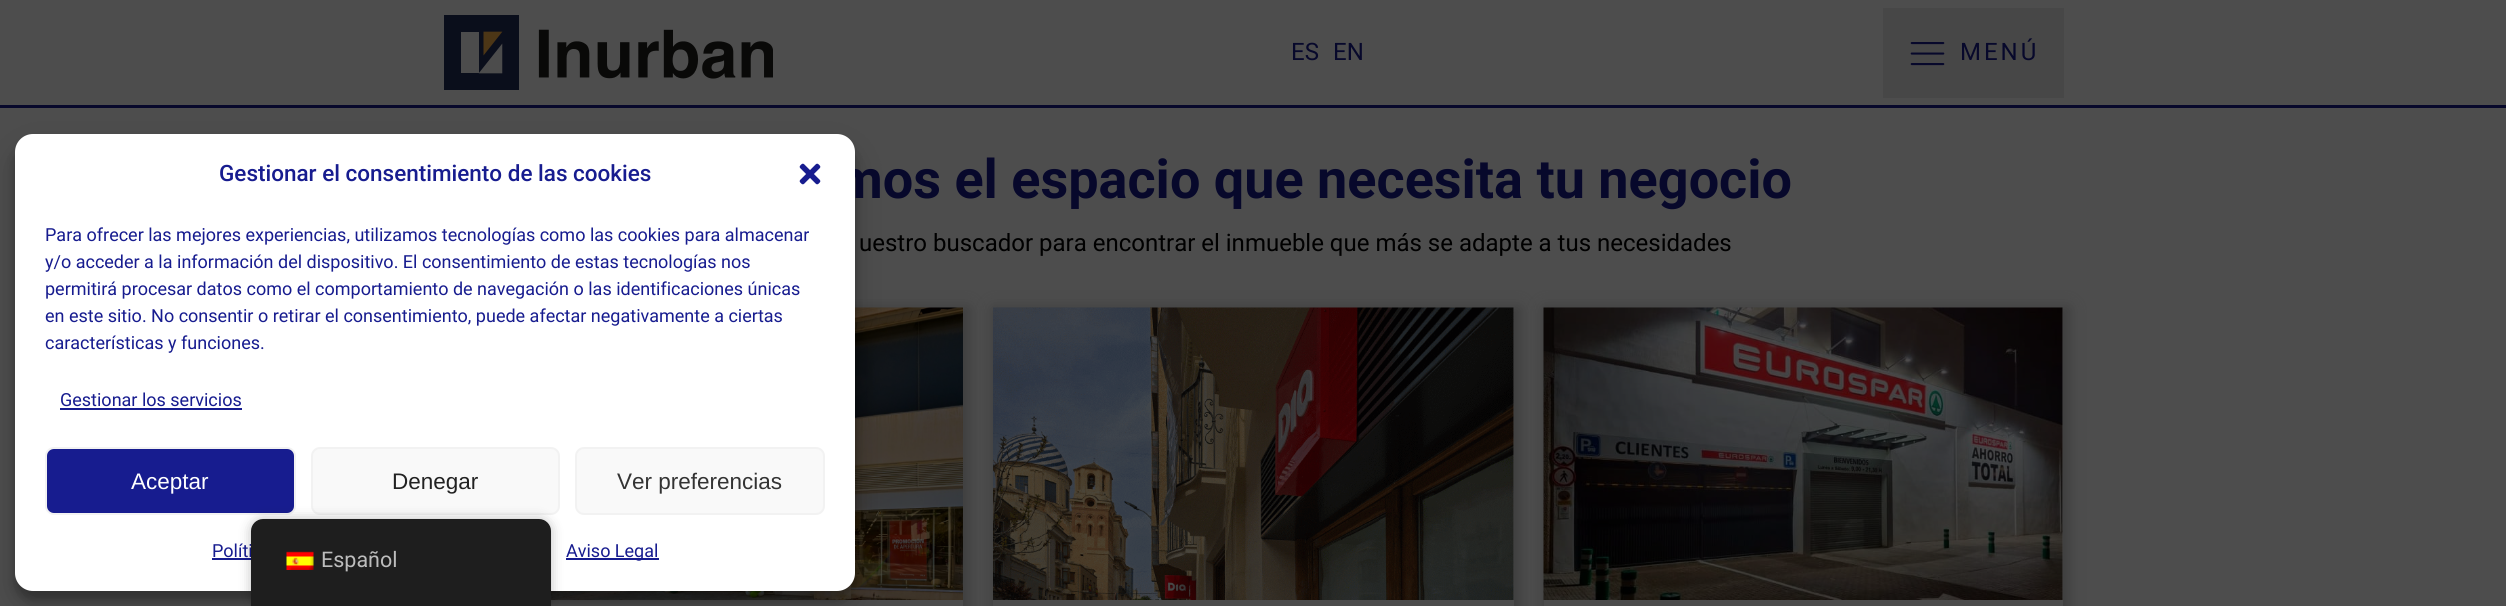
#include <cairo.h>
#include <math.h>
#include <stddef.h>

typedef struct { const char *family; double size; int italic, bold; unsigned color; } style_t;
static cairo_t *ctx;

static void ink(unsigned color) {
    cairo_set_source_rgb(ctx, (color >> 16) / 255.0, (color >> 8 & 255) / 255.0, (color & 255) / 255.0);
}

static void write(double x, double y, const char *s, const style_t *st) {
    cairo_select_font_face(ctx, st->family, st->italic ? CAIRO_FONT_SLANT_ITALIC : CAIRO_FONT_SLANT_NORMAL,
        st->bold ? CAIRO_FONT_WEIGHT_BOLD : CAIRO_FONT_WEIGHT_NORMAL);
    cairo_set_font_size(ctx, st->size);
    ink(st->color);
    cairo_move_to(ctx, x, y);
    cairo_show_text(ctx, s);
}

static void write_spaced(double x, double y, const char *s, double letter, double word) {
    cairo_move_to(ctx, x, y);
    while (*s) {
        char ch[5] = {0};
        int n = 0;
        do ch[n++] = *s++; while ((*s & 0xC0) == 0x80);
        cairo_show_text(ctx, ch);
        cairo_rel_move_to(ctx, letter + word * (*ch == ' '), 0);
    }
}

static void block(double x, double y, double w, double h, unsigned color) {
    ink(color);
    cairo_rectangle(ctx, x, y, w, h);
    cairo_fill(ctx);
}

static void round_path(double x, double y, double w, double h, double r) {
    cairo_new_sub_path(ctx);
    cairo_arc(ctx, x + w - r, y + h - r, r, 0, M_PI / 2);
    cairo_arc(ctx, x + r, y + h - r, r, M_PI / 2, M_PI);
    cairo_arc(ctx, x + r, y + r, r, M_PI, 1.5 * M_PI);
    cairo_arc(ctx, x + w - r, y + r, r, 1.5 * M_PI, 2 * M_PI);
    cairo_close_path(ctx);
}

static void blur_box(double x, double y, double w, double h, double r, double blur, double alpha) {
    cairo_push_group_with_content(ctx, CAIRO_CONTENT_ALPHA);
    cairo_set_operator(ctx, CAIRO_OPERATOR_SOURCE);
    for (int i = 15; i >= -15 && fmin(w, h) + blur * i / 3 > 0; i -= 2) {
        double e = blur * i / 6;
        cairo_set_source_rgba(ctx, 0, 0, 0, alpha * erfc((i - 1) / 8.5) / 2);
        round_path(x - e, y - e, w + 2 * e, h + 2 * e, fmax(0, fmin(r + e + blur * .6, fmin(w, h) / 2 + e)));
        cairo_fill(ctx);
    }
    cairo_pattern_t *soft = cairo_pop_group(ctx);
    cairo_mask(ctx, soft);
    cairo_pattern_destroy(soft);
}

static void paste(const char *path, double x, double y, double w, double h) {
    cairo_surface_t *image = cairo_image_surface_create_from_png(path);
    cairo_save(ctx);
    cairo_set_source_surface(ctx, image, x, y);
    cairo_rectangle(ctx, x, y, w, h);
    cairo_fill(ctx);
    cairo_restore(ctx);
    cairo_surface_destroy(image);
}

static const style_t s1 = {"Roboto", 24, 0, 0, 0x07082b};
static const style_t s2 = {"Roboto", 54, 0, 1, 0x07082b};
static const style_t s3 = {"Roboto Medium", 22.5, 0, 0, 0x171c8f};
static const style_t s4 = {"Roboto", 18, 0, 0, 0x171c8f};
static const style_t s5 = {"Liberation Sans", 22.5, 0, 0, 0xffffff};
static const style_t s6 = {"Liberation Sans", 22.5, 0, 0, 0x222222};
static const style_t s7 = {"Liberation Sans", 22.5, 0, 0, 0x333333};
static const style_t s8 = {"Roboto", 24, 0, 0, 0x000000};
static const style_t s9 = {"Roboto", 21.5, 0, 0, 0xbdbdbd};

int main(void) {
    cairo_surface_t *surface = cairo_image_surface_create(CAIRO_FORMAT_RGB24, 2506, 606);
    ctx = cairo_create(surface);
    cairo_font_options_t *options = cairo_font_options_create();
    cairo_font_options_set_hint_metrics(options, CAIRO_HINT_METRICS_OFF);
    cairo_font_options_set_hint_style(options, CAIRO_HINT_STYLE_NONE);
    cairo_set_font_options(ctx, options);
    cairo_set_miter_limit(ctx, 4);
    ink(0x4d4d4d);
    cairo_paint(ctx);
    block(0, 105, 2506, 3, 0x07082b);
    paste("pic1.png", 444, 15, 329, 75);
    write(1291, 60, "ES", &s1);
    write(1333, 60, "EN", &s1);
    block(1883, 8, 181, 90, 0x474747);
    paste("pic2.png", 1910, 42, 35, 24);
    ink(0x07082b);
    write_spaced(1960, 60, "MENÚ", 3, 0);
    ink(0x3d3d3d);
    blur_box(444, 308, 525, 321, 0, 7.5, 1);
    paste("pic4.png", 551, 307, 412, 293);
    block(551, 600, 412, 6, 0x4c4c4c);
    ink(0x000000);
    blur_box(15, 143, 840, 457, 18, 4.5, 0.23);
    blur_box(15, 149, 840, 457, 18, 15, 0.19);
    write(836, 198, "mos el espacio que necesita tu negocio", &s2);
    ink(0xffffff);
    round_path(15, 134, 840, 457, 18);
    cairo_fill(ctx);
    write(219, 181, "Gestionar el consentimiento de las cookies", &s3);
    paste("pic3.png", 799, 163, 22, 22);
    write(45, 241, "Para ofrecer las mejores experiencias, utilizamos tecnologías como las cookies para almacenar", &s4);
    write(45, 268, "y/o acceder a la información del dispositivo. El consentimiento de estas tecnologías nos", &s4);
    write(45, 295, "permitirá procesar datos como el comportamiento de navegación o las identificaciones únicas", &s4);
    write(45, 322, "en este sitio. No consentir o retirar el consentimiento, puede afectar negativamente a ciertas", &s4);
    write(45, 349, "características y funciones.", &s4);
    write(60, 406, "Gestionar los servicios", &s4);
    block(60, 408, 182, 2, 0x171c8f);
    round_path(46, 448, 249, 66, 8);
    cairo_fill_preserve(ctx);
    ink(0xf2f2f2);
    cairo_stroke(ctx);
    write(131, 489, "Aceptar", &s5);
    ink(0xf9f9f9);
    round_path(312, 448, 247, 66, 8);
    cairo_fill_preserve(ctx);
    ink(0xf2f2f2);
    cairo_stroke(ctx);
    write(392, 489, "Denegar", &s6);
    ink(0xf9f9f9);
    round_path(576, 448, 248, 66, 8);
    cairo_fill_preserve(ctx);
    ink(0xf2f2f2);
    cairo_stroke(ctx);
    write(617, 489, "Ver preferencias", &s7);
    write(212, 557, "Políti", &s4);
    block(212, 558, 39, 2, 0x171c8f);
    block(566, 558, 93, 2, 0x171c8f);
    write(566, 557, "Aviso Legal", &s4);
    write(859, 251, "uestro buscador para encontrar el inmueble que más se adapte a tus necesidades", &s8);
    ink(0x3d3d3d);
    blur_box(993, 308, 527, 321, 0, 7.5, 1);
    block(1513, 308, 1, 292, 0x484848);
    paste("pic5.png", 993, 307, 521, 293);
    block(993, 600, 521, 6, 0x4c4c4c);
    ink(0x3d3d3d);
    blur_box(1544, 308, 525, 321, 0, 7.5, 1);
    block(2062, 308, 1, 292, 0x484848);
    paste("pic6.png", 1543, 307, 520, 293);
    block(1544, 600, 519, 6, 0x4c4c4c);
    ink(0x000000);
    blur_box(251, 519, 300, 87, 12, 6, 0.25);
    ink(0x1e1e1e);
    cairo_new_path(ctx);
    cairo_move_to(ctx, 263, 519);
    cairo_line_to(ctx, 539, 519);
    cairo_curve_to(ctx, 545.5, 519, 551, 524.5, 551, 531);
    cairo_line_to(ctx, 551, 606);
    cairo_line_to(ctx, 251, 606);
    cairo_line_to(ctx, 251, 531);
    cairo_curve_to(ctx, 251, 524.5, 256.5, 519, 263, 519);
    cairo_close_path(ctx);
    cairo_fill(ctx);
    paste("pic7.png", 286, 551, 28, 19);
    write(321, 567, "Español", &s9);
    cairo_surface_write_to_png(surface, "screenshot.png");
    cairo_font_options_destroy(options);
    cairo_destroy(ctx);
    cairo_surface_destroy(surface);
    return 0;
}
